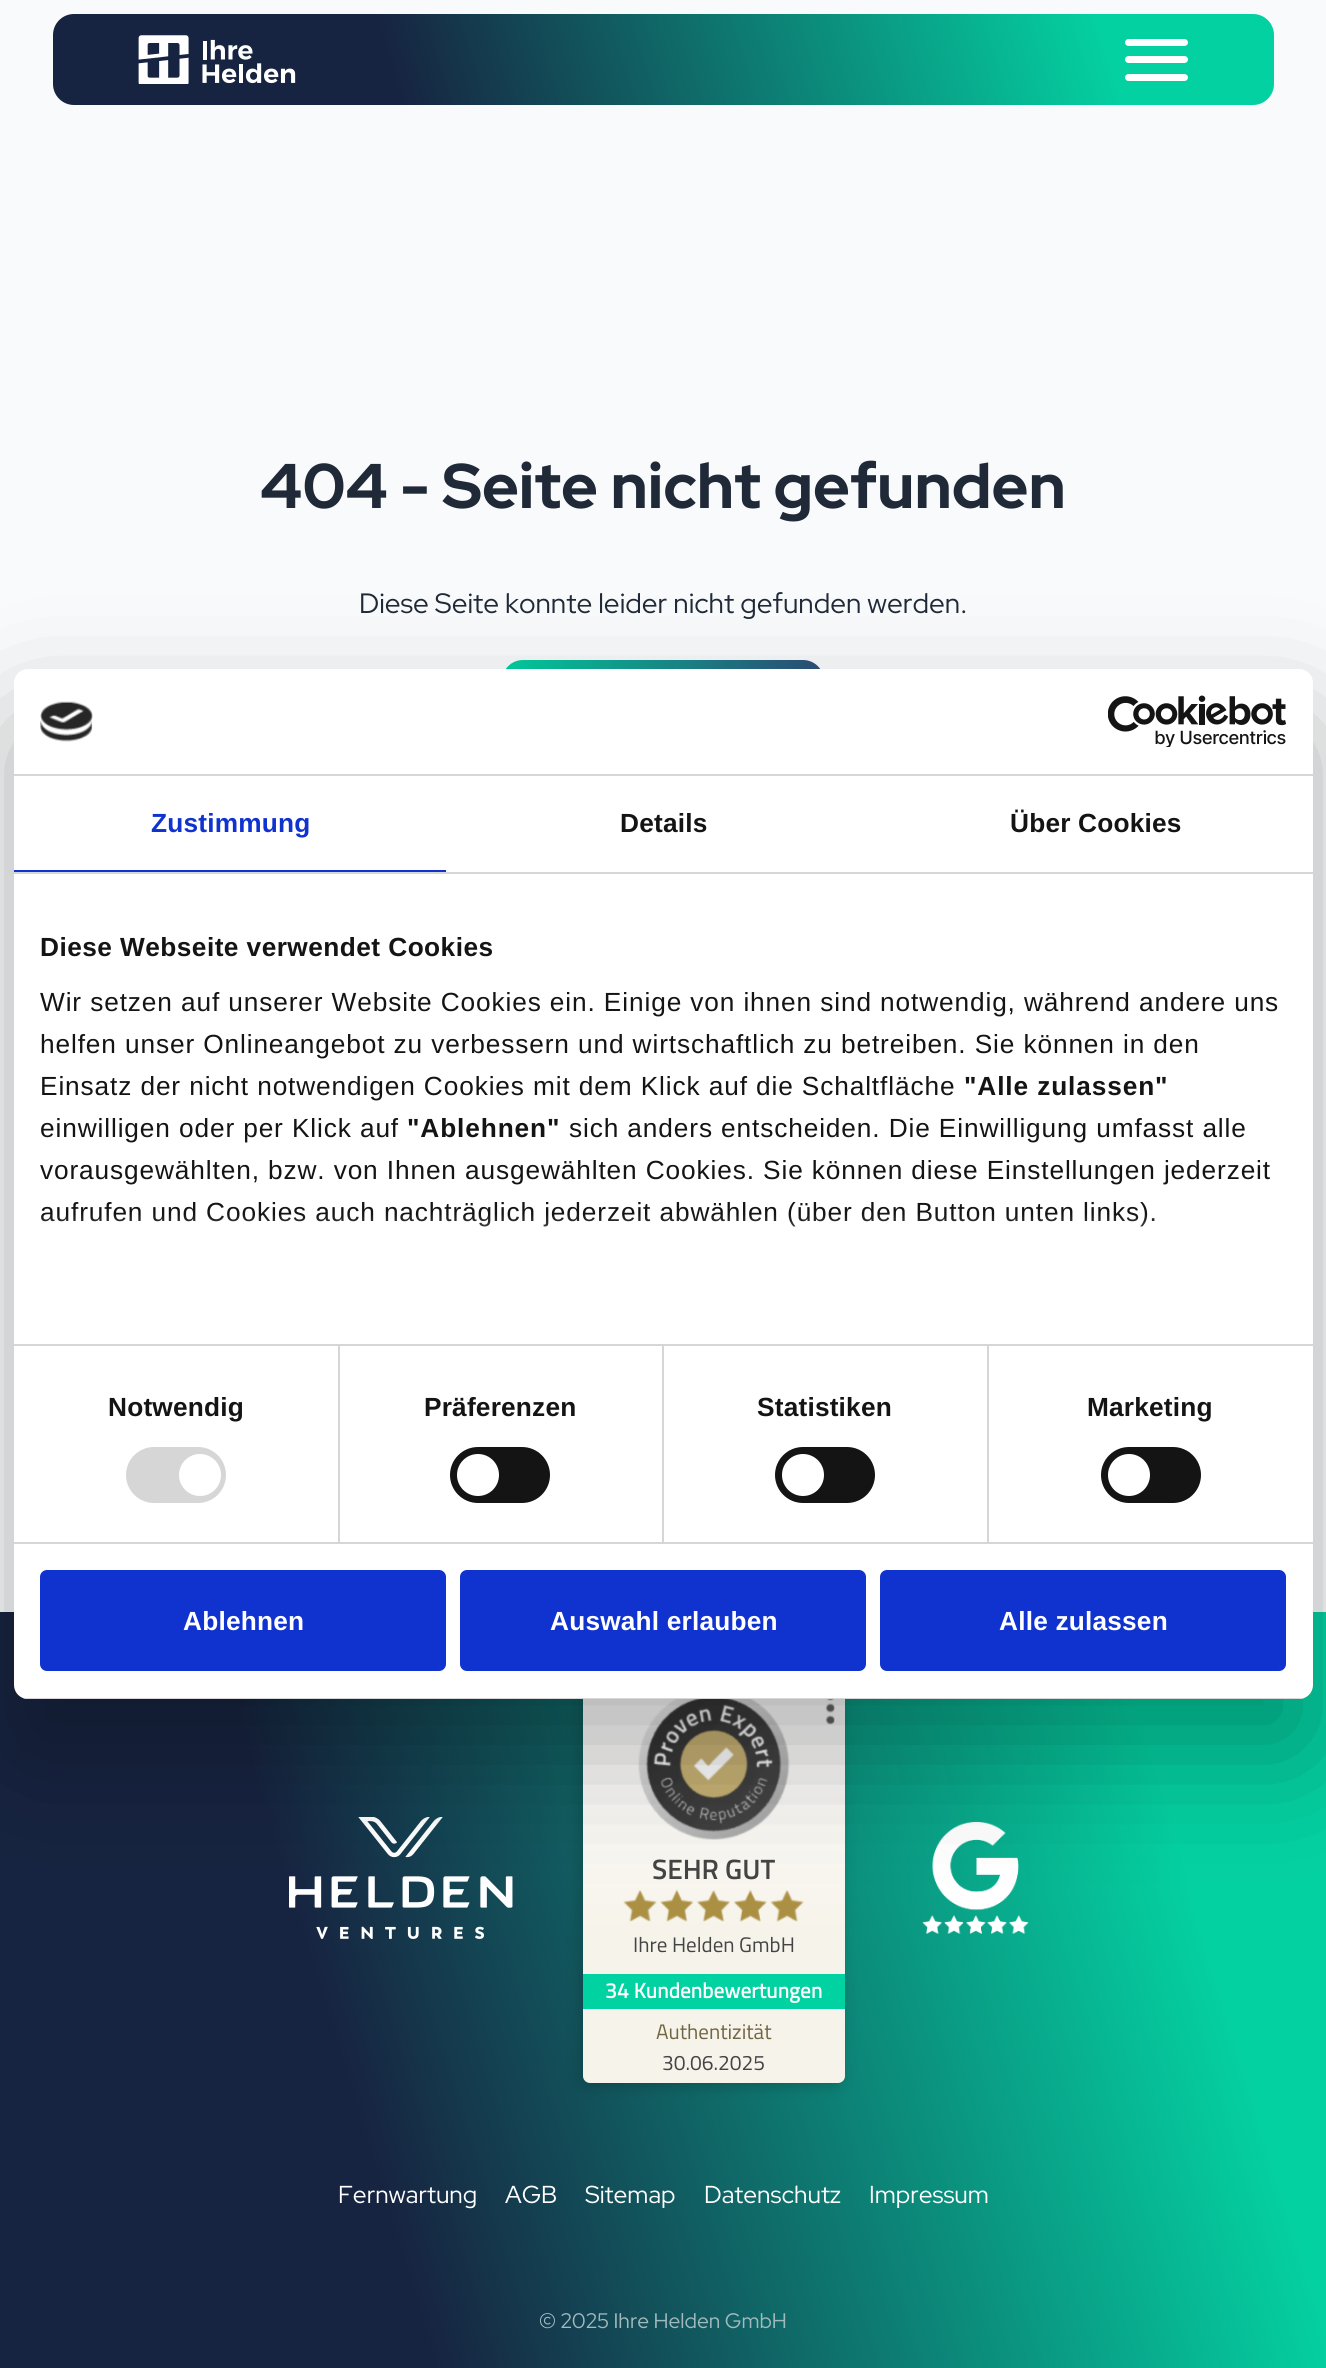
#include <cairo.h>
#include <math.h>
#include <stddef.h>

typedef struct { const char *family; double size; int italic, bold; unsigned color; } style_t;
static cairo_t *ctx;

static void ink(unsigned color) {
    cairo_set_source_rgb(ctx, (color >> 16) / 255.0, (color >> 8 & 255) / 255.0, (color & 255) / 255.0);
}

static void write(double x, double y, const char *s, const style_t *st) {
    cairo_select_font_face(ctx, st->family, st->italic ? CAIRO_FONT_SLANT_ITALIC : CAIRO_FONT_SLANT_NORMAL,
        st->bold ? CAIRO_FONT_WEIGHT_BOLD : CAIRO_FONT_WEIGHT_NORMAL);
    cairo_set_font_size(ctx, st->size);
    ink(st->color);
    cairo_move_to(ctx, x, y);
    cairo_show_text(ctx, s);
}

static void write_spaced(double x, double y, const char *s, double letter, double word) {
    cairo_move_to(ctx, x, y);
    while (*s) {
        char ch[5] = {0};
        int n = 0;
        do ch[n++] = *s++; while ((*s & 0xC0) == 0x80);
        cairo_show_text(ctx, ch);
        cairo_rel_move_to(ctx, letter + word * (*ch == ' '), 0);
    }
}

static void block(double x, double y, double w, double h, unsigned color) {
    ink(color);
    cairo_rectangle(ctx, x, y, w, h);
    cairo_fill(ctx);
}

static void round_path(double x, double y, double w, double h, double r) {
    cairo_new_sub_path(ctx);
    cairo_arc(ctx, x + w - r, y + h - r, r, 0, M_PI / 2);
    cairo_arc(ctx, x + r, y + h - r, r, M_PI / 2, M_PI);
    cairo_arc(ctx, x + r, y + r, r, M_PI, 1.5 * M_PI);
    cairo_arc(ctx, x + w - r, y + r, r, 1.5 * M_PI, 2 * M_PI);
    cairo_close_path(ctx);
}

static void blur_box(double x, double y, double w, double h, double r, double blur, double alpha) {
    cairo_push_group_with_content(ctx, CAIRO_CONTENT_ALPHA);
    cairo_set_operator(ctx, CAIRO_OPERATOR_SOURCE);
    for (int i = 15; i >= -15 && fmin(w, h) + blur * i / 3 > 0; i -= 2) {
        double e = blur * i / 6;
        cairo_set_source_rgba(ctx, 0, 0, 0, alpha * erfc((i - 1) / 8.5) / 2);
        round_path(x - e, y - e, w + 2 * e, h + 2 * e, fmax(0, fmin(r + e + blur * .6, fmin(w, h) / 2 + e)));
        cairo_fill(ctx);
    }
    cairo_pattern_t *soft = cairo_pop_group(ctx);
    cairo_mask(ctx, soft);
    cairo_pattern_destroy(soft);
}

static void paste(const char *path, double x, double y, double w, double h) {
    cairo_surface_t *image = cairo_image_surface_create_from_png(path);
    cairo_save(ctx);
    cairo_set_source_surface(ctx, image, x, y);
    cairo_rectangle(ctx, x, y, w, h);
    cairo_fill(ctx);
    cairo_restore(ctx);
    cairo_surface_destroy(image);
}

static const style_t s1 = {"Red Hat Display ExtraBold", 63, 0, 0, 0x1f2937};
static const style_t s2 = {"Red Hat Display", 28, 0, 0, 0x1f2937};
static const style_t s3 = {"Titillium Web SemiBold", 28, 0, 0, 0x444444};
static const style_t s4 = {"Titillium Web", 21, 0, 0, 0x444444};
static const style_t s5 = {"Titillium Web", 21, 0, 0, 0x726542};
static const style_t s6 = {"Red Hat Display", 24.5, 0, 0, 0xffffff};
static const style_t s7 = {"Red Hat Display", 21, 0, 0, 0xa0babd};

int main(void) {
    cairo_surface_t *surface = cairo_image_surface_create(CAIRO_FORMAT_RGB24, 1326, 2368);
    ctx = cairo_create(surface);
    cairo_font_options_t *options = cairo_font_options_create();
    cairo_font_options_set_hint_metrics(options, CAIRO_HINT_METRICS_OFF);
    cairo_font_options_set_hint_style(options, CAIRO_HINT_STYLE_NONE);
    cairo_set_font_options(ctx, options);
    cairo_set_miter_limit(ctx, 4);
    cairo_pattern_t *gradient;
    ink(0xf9fafb);
    cairo_paint(ctx);
    gradient = cairo_pattern_create_linear(93, 235, 1234, -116);
    cairo_pattern_add_color_stop_rgba(gradient, 0.28, 0.09, 0.141, 0.255, 1);
    cairo_pattern_add_color_stop_rgba(gradient, 0.86, 0.016, 0.82, 0.635, 1);
    cairo_set_source(ctx, gradient);
    cairo_pattern_destroy(gradient);
    round_path(53, 14, 1221, 91, 21);
    cairo_fill(ctx);
    paste("pic1.png", 138, 35, 158, 49);
    ink(0xffffff);
    round_path(1125, 39, 63, 7, 3.5);
    cairo_fill(ctx);
    round_path(1125, 56, 63, 7, 3.5);
    cairo_fill(ctx);
    round_path(1125, 74, 63, 7, 3.5);
    cairo_fill(ctx);
    write(260, 508, "404 - Seite nicht gefunden", &s1);
    write(359, 613, "Diese Seite konnte leider nicht gefunden werden.", &s2);
    gradient = cairo_pattern_create_linear(499, 676, 827, 734);
    cairo_pattern_add_color_stop_rgba(gradient, 0, 0, 0.824, 0.631, 1);
    cairo_pattern_add_color_stop_rgba(gradient, 1, 0.188, 0.278, 0.463, 1);
    cairo_set_source(ctx, gradient);
    cairo_pattern_destroy(gradient);
    round_path(502, 660, 322, 91, 21);
    cairo_fill(ctx);
    gradient = cairo_pattern_create_linear(-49, 2210, 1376, 1771);
    cairo_pattern_add_color_stop_rgba(gradient, 0.28, 0.09, 0.141, 0.255, 1);
    cairo_pattern_add_color_stop_rgba(gradient, 0.86, 0.016, 0.82, 0.635, 1);
    cairo_set_source(ctx, gradient);
    cairo_pattern_destroy(gradient);
    cairo_rectangle(ctx, 0, 1612, 1326, 756);
    cairo_fill(ctx);
    paste("pic2.png", 289, 1817, 224, 122);
    ink(0x000000);
    blur_box(583, 1682, 255, 401, 4, 9, 0.25);
    gradient = cairo_pattern_create_linear(714, 2083, 714, 1675);
    cairo_pattern_add_color_stop_rgba(gradient, 0.37, 0.965, 0.953, 0.918, 1);
    cairo_pattern_add_color_stop_rgba(gradient, 0.9, 1, 1, 1, 1);
    cairo_set_source(ctx, gradient);
    cairo_pattern_destroy(gradient);
    round_path(583, 1675, 262, 408, 7);
    cairo_fill(ctx);
    paste("pic3.png", 638, 1699, 152, 141);
    paste("pic4.png", 825, 1699, 10, 26);
    write(652, 1879, "SEHR GUT", &s3);
    paste("pic5.png", 623, 1890, 34, 32);
    paste("pic6.png", 660, 1889, 34, 33);
    paste("pic7.png", 696, 1890, 35, 32);
    paste("pic8.png", 733, 1889, 34, 33);
    paste("pic9.png", 770, 1890, 34, 32);
    write(633, 1952, "Ihre Helden GmbH", &s4);
    block(583, 1974, 262, 35, 0x00d2a1);
    cairo_select_font_face(ctx, "Titillium Web", CAIRO_FONT_SLANT_NORMAL, CAIRO_FONT_WEIGHT_BOLD);
    ink(0xffffff);
    write_spaced(605, 1998, "34 Kundenbewertungen", 0.2, 0);
    write(656, 2039, "Authentizität", &s5);
    write(662, 2070, "30.06.2025", &s4);
    paste("pic10.png", 922, 1821, 107, 113);
    write(338, 2203, "Fernwartung", &s6);
    write(505, 2203, "AGB", &s6);
    write(585, 2203, "Sitemap", &s6);
    write(704, 2203, "Datenschutz", &s6);
    write(869, 2203, "Impressum", &s6);
    write(539, 2328, "© 2025 Ihre Helden GmbH", &s7);
    ink(0x000000);
    blur_box(14, 725, 1299, 1030, 14, 59.5, 0.3);
    ink(0xffffff);
    round_path(14, 669, 1299, 1030, 14);
    cairo_fill(ctx);
    block(14, 774, 1299, 2, 0xd6d6d6);
    paste("pic11.png", 40, 701, 53, 41);
    paste("pic12.png", 1108, 695, 178, 52);
    block(14, 872, 1299, 2, 0xd6d6d6);
    block(14, 870, 432, 2, 0x1032cf);
    cairo_select_font_face(ctx, "Liberation Sans", CAIRO_FONT_SLANT_NORMAL, CAIRO_FONT_WEIGHT_BOLD);
    cairo_set_font_size(ctx, 26.25);
    write_spaced(151, 832, "Zustimmung", 0.2, 0);
    ink(0x141414);
    write_spaced(620, 832, "Details", 0.2, 0);
    write_spaced(1010, 832, "Über Cookies", 0.2, 0);
    block(14, 1344, 1299, 2, 0xd6d6d6);
    ink(0x141414);
    write_spaced(40, 956, "Diese Webseite verwendet Cookies", 0.45, 0);
    cairo_select_font_face(ctx, "Liberation Sans", CAIRO_FONT_SLANT_NORMAL, CAIRO_FONT_WEIGHT_NORMAL);
    write_spaced(40, 1011, "Wir setzen auf unserer Website Cookies ein. Einige von ihnen sind notwendig, während andere uns", 0.88, 0);
    write_spaced(40, 1053, "helfen unser Onlineangebot zu verbessern und wirtschaftlich zu betreiben. Sie können in den", 0.88, 0);
    write_spaced(40, 1095, "Einsatz der nicht notwendigen Cookies mit dem Klick auf die Schaltfläche", 0.88, 0);
    cairo_select_font_face(ctx, "Liberation Sans", CAIRO_FONT_SLANT_NORMAL, CAIRO_FONT_WEIGHT_BOLD);
    write_spaced(964, 1095, "\"Alle zulassen\"", 0.88, 0);
    cairo_select_font_face(ctx, "Liberation Sans", CAIRO_FONT_SLANT_NORMAL, CAIRO_FONT_WEIGHT_NORMAL);
    write_spaced(40, 1137, "einwilligen oder per Klick auf", 0.88, 0);
    cairo_select_font_face(ctx, "Liberation Sans", CAIRO_FONT_SLANT_NORMAL, CAIRO_FONT_WEIGHT_BOLD);
    write_spaced(407, 1137, "\"Ablehnen\"", 0.88, 0);
    cairo_select_font_face(ctx, "Liberation Sans", CAIRO_FONT_SLANT_NORMAL, CAIRO_FONT_WEIGHT_NORMAL);
    write_spaced(569, 1137, "sich anders entscheiden. Die Einwilligung umfasst alle", 0.88, 0);
    write_spaced(40, 1179, "vorausgewählten, bzw. von Ihnen ausgewählten Cookies. Sie können diese Einstellungen jederzeit", 0.88, 0);
    write_spaced(40, 1221, "aufrufen und Cookies auch nachträglich jederzeit abwählen (über den Button unten links).", 0.88, 0);
    gradient = cairo_pattern_create_linear(652, 1345, 652, 1213);
    cairo_pattern_add_color_stop_rgba(gradient, 0, 1, 1, 1, 1);
    cairo_pattern_add_color_stop_rgba(gradient, 0.5, 1, 1, 1, 0.8);
    cairo_pattern_add_color_stop_rgba(gradient, 1, 1, 1, 1, 0);
    cairo_set_source(ctx, gradient);
    cairo_pattern_destroy(gradient);
    cairo_rectangle(ctx, 41, 1215, 1114, 12);
    cairo_fill(ctx);
    block(14, 1542, 1299, 2, 0xd6d6d6);
    block(338, 1346, 2, 196, 0xd6d6d6);
    cairo_select_font_face(ctx, "Liberation Sans", CAIRO_FONT_SLANT_NORMAL, CAIRO_FONT_WEIGHT_BOLD);
    ink(0x141414);
    write_spaced(108, 1416, "Notwendig", 0.2, 0);
    ink(0xd6d6d6);
    round_path(126, 1447, 100, 56, 28);
    cairo_fill(ctx);
    ink(0xffffff);
    cairo_arc(ctx, 200, 1475, 21, 0, 2 * M_PI);
    cairo_fill(ctx);
    block(662, 1346, 2, 196, 0xd6d6d6);
    ink(0x141414);
    write_spaced(424, 1416, "Präferenzen", 0.2, 0);
    round_path(450, 1447, 100, 56, 28);
    cairo_fill(ctx);
    ink(0xffffff);
    cairo_arc(ctx, 478, 1475, 21, 0, 2 * M_PI);
    cairo_fill(ctx);
    block(987, 1346, 2, 196, 0xd6d6d6);
    ink(0x141414);
    write_spaced(757, 1416, "Statistiken", 0.2, 0);
    round_path(775, 1447, 100, 56, 28);
    cairo_fill(ctx);
    ink(0xffffff);
    cairo_arc(ctx, 803, 1475, 21, 0, 2 * M_PI);
    cairo_fill(ctx);
    ink(0x141414);
    write_spaced(1087, 1416, "Marketing", 0.2, 0);
    round_path(1101, 1447, 100, 56, 28);
    cairo_fill(ctx);
    ink(0xffffff);
    cairo_arc(ctx, 1129, 1475, 21, 0, 2 * M_PI);
    cairo_fill(ctx);
    cairo_save(ctx);
    round_path(14, 669, 1299, 1030, 14);
    cairo_clip(ctx);
    block(23, 1698, 1281, 1, 0xd6d6d6);
    cairo_restore(ctx);
    ink(0x1032cf);
    round_path(42, 1572, 402, 97, 5);
    cairo_fill_preserve(ctx);
    cairo_set_line_width(ctx, 4);
    cairo_stroke(ctx);
    ink(0xffffff);
    write_spaced(183, 1630, "Ablehnen", 0.2, 0);
    ink(0x1032cf);
    round_path(462, 1572, 402, 97, 5);
    cairo_fill_preserve(ctx);
    cairo_stroke(ctx);
    ink(0xffffff);
    write_spaced(550, 1630, "Auswahl erlauben", 0.2, 0);
    ink(0x1032cf);
    round_path(882, 1572, 402, 97, 5);
    cairo_fill_preserve(ctx);
    cairo_stroke(ctx);
    ink(0xffffff);
    write_spaced(999, 1630, "Alle zulassen", 0.2, 0);
    cairo_surface_write_to_png(surface, "screenshot.png");
    cairo_font_options_destroy(options);
    cairo_destroy(ctx);
    cairo_surface_destroy(surface);
    return 0;
}
